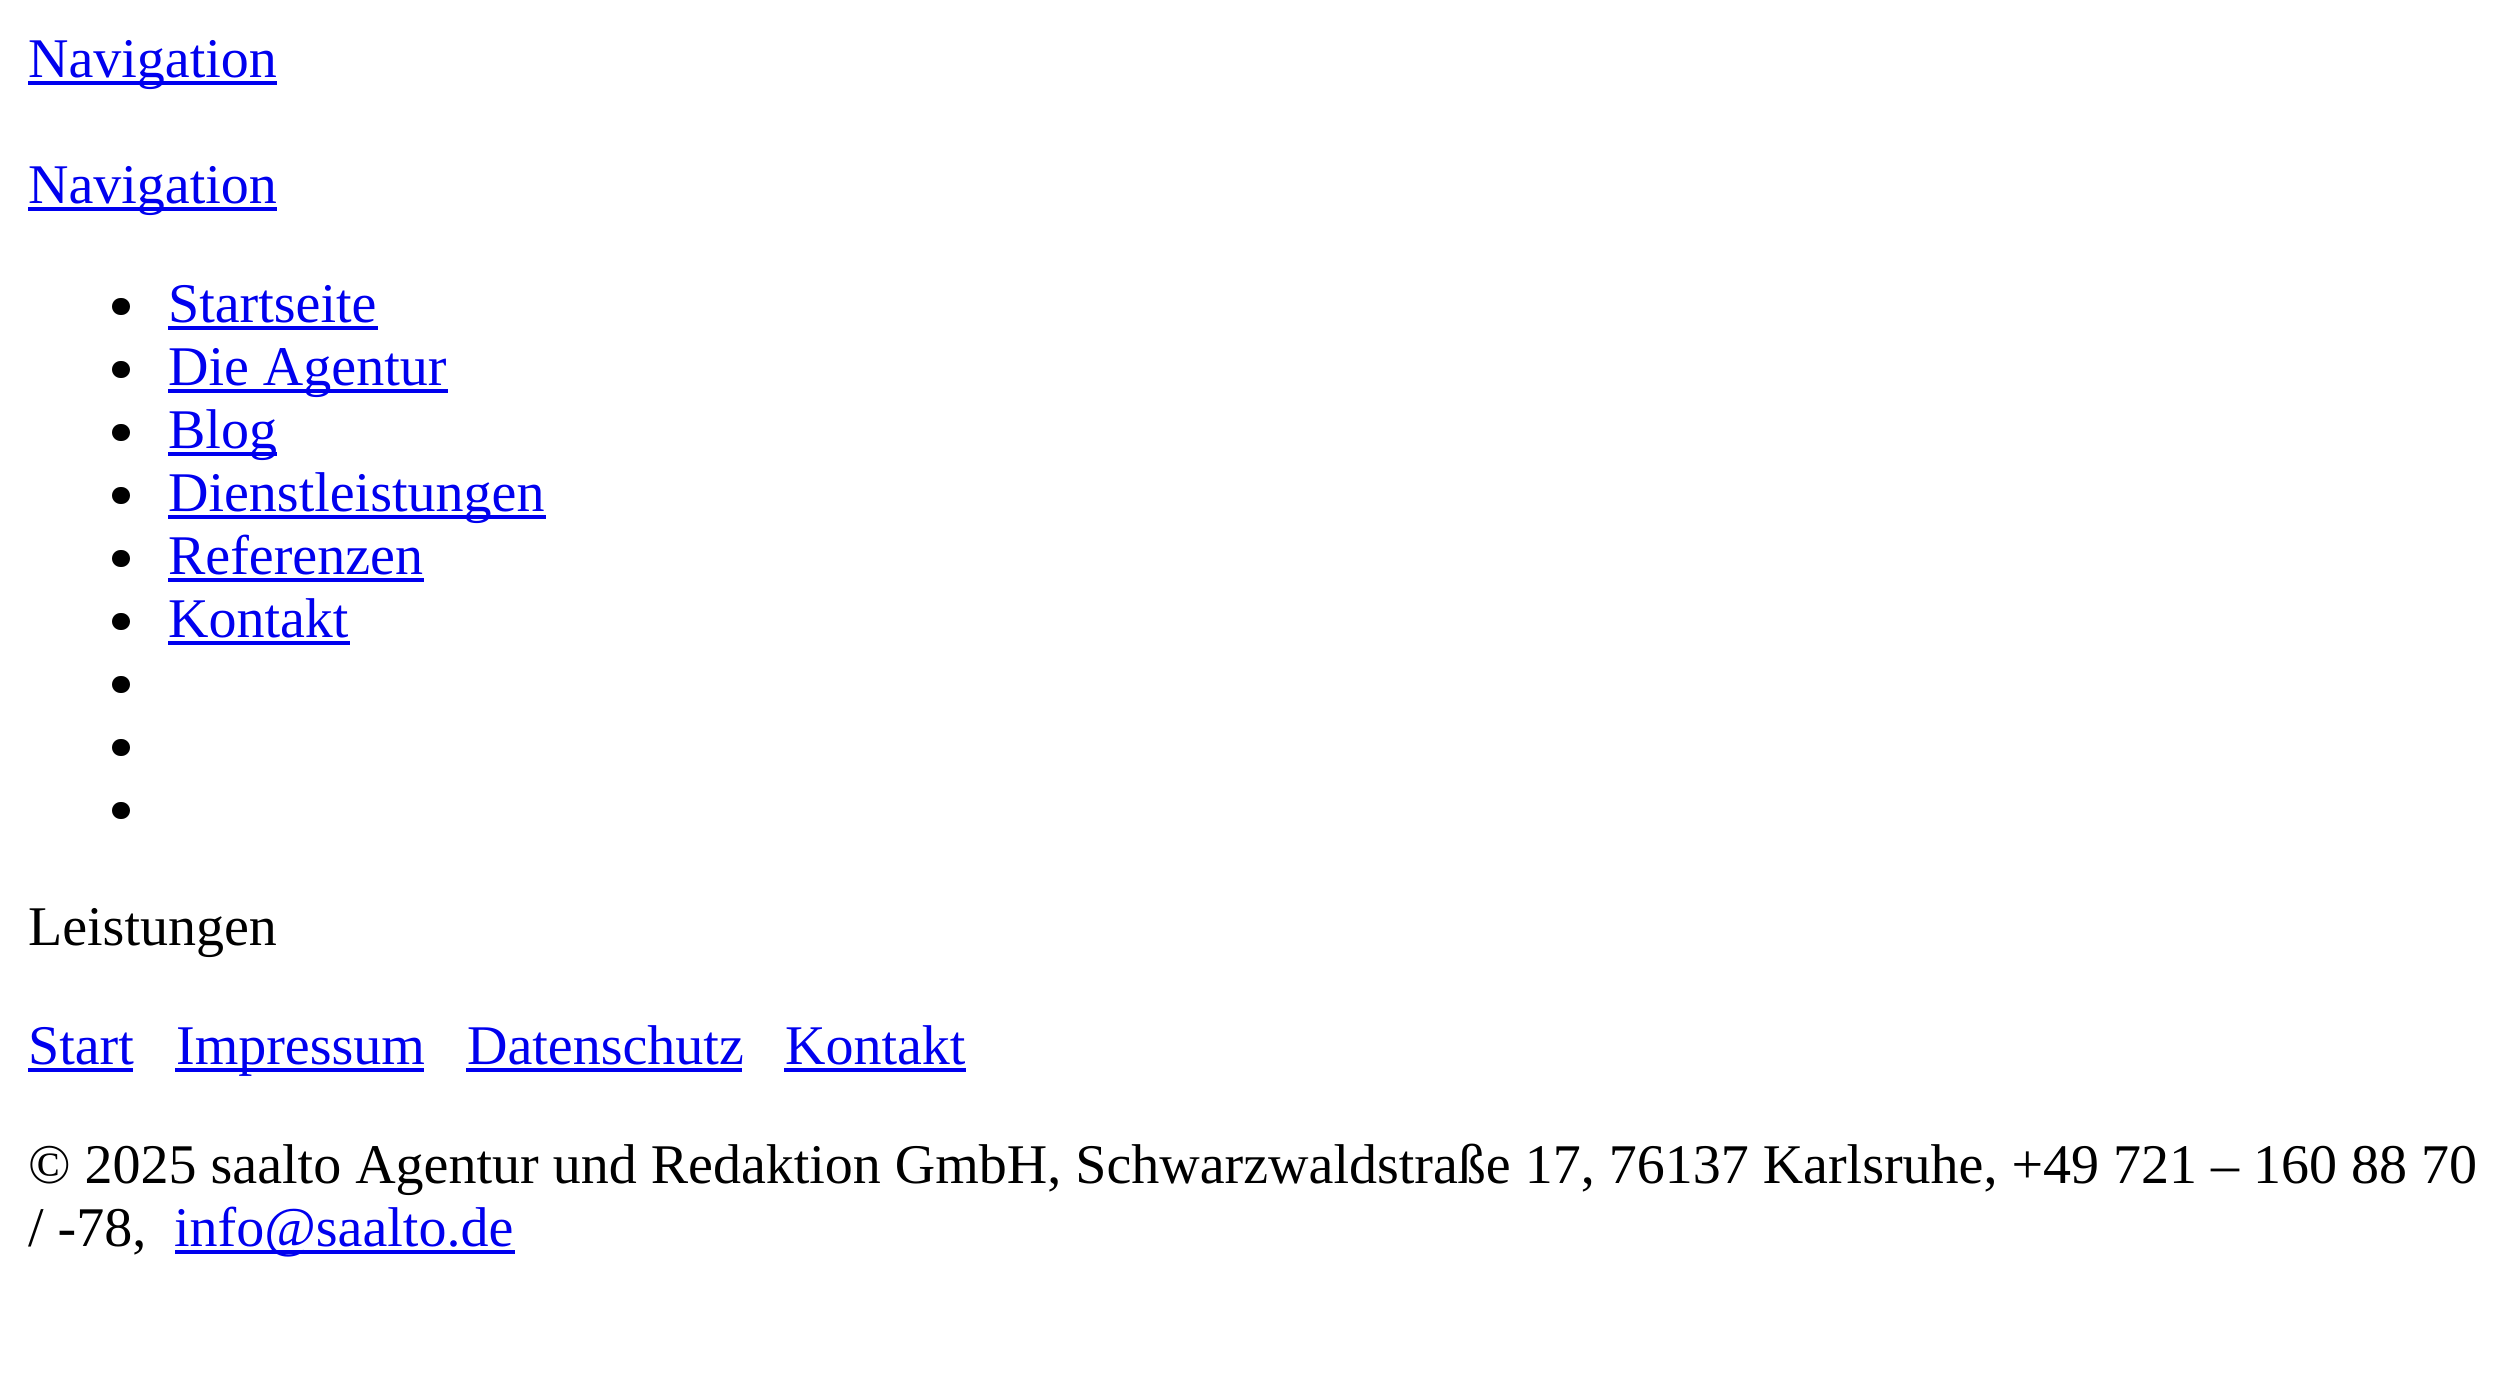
#include <cairo.h>
#include <math.h>
#include <stddef.h>

typedef struct { const char *family; double size; int italic, bold; unsigned color; } style_t;
static cairo_t *ctx;

static void ink(unsigned color) {
    cairo_set_source_rgb(ctx, (color >> 16) / 255.0, (color >> 8 & 255) / 255.0, (color & 255) / 255.0);
}

static void write(double x, double y, const char *s, const style_t *st) {
    cairo_select_font_face(ctx, st->family, st->italic ? CAIRO_FONT_SLANT_ITALIC : CAIRO_FONT_SLANT_NORMAL,
        st->bold ? CAIRO_FONT_WEIGHT_BOLD : CAIRO_FONT_WEIGHT_NORMAL);
    cairo_set_font_size(ctx, st->size);
    ink(st->color);
    cairo_move_to(ctx, x, y);
    cairo_show_text(ctx, s);
}

static void block(double x, double y, double w, double h, unsigned color) {
    ink(color);
    cairo_rectangle(ctx, x, y, w, h);
    cairo_fill(ctx);
}

static void round_path(double x, double y, double w, double h, double r) {
    cairo_new_sub_path(ctx);
    cairo_arc(ctx, x + w - r, y + h - r, r, 0, M_PI / 2);
    cairo_arc(ctx, x + r, y + h - r, r, M_PI / 2, M_PI);
    cairo_arc(ctx, x + r, y + r, r, M_PI, 1.5 * M_PI);
    cairo_arc(ctx, x + w - r, y + r, r, 1.5 * M_PI, 2 * M_PI);
    cairo_close_path(ctx);
}

static const style_t s1 = {"Liberation Serif", 56, 0, 0, 0x0000ee};
static const style_t s2 = {"Liberation Serif", 56, 0, 0, 0x000000};

int main(void) {
    cairo_surface_t *surface = cairo_image_surface_create(CAIRO_FORMAT_RGB24, 2511, 1386);
    ctx = cairo_create(surface);
    cairo_font_options_t *options = cairo_font_options_create();
    cairo_font_options_set_hint_metrics(options, CAIRO_HINT_METRICS_OFF);
    cairo_font_options_set_hint_style(options, CAIRO_HINT_STYLE_NONE);
    cairo_set_font_options(ctx, options);
    cairo_set_miter_limit(ctx, 4);
    ink(0xffffff);
    cairo_paint(ctx);
    block(28, 81, 249, 4, 0x0000ee);
    write(28, 77, "Navigation", &s1);
    block(28, 207, 249, 4, 0x0000ee);
    write(28, 203, "Navigation", &s1);
    ink(0x000000);
    round_path(112, 298, 18, 17, 8.5);
    cairo_fill(ctx);
    write(168, 322, "Startseite", &s1);
    block(168, 326, 210, 4, 0x0000ee);
    ink(0x000000);
    round_path(112, 361, 18, 17, 8.5);
    cairo_fill(ctx);
    block(168, 389, 280, 4, 0x0000ee);
    write(168, 385, "Die Agentur", &s1);
    ink(0x000000);
    round_path(112, 424, 18, 17, 8.5);
    cairo_fill(ctx);
    block(168, 452, 109, 4, 0x0000ee);
    write(168, 448, "Blog", &s1);
    ink(0x000000);
    round_path(112, 487, 18, 17, 8.5);
    cairo_fill(ctx);
    block(168, 515, 378, 4, 0x0000ee);
    write(168, 511, "Dienstleistungen", &s1);
    ink(0x000000);
    round_path(112, 550, 18, 17, 8.5);
    cairo_fill(ctx);
    write(168, 574, "Referenzen", &s1);
    block(168, 578, 256, 4, 0x0000ee);
    ink(0x000000);
    round_path(112, 613, 18, 17, 8.5);
    cairo_fill(ctx);
    write(168, 637, "Kontakt", &s1);
    block(168, 641, 182, 4, 0x0000ee);
    ink(0x000000);
    round_path(112, 676, 18, 17, 8.5);
    cairo_fill(ctx);
    round_path(112, 739, 18, 17, 8.5);
    cairo_fill(ctx);
    round_path(112, 802, 18, 17, 8.5);
    cairo_fill(ctx);
    write(28, 945, "Leistungen", &s2);
    write(28, 1064, "Start", &s1);
    block(28, 1068, 105, 4, 0x0000ee);
    block(175, 1068, 249, 4, 0x0000ee);
    write(176, 1064, "Impressum", &s1);
    write(467, 1064, "Datenschutz", &s1);
    block(466, 1068, 276, 4, 0x0000ee);
    write(785, 1064, "Kontakt", &s1);
    block(784, 1068, 182, 4, 0x0000ee);
    write(28, 1183, "© 2025 saalto Agentur und Redaktion GmbH, Schwarzwaldstraße 17, 76137 Karlsruhe, +49 721 – 160 88 70", &s2);
    write(28, 1246, "/ -78,", &s2);
    block(175, 1250, 340, 4, 0x0000ee);
    write(174, 1246, "info@saalto.de", &s1);
    cairo_surface_write_to_png(surface, "screenshot.png");
    cairo_font_options_destroy(options);
    cairo_destroy(ctx);
    cairo_surface_destroy(surface);
    return 0;
}
